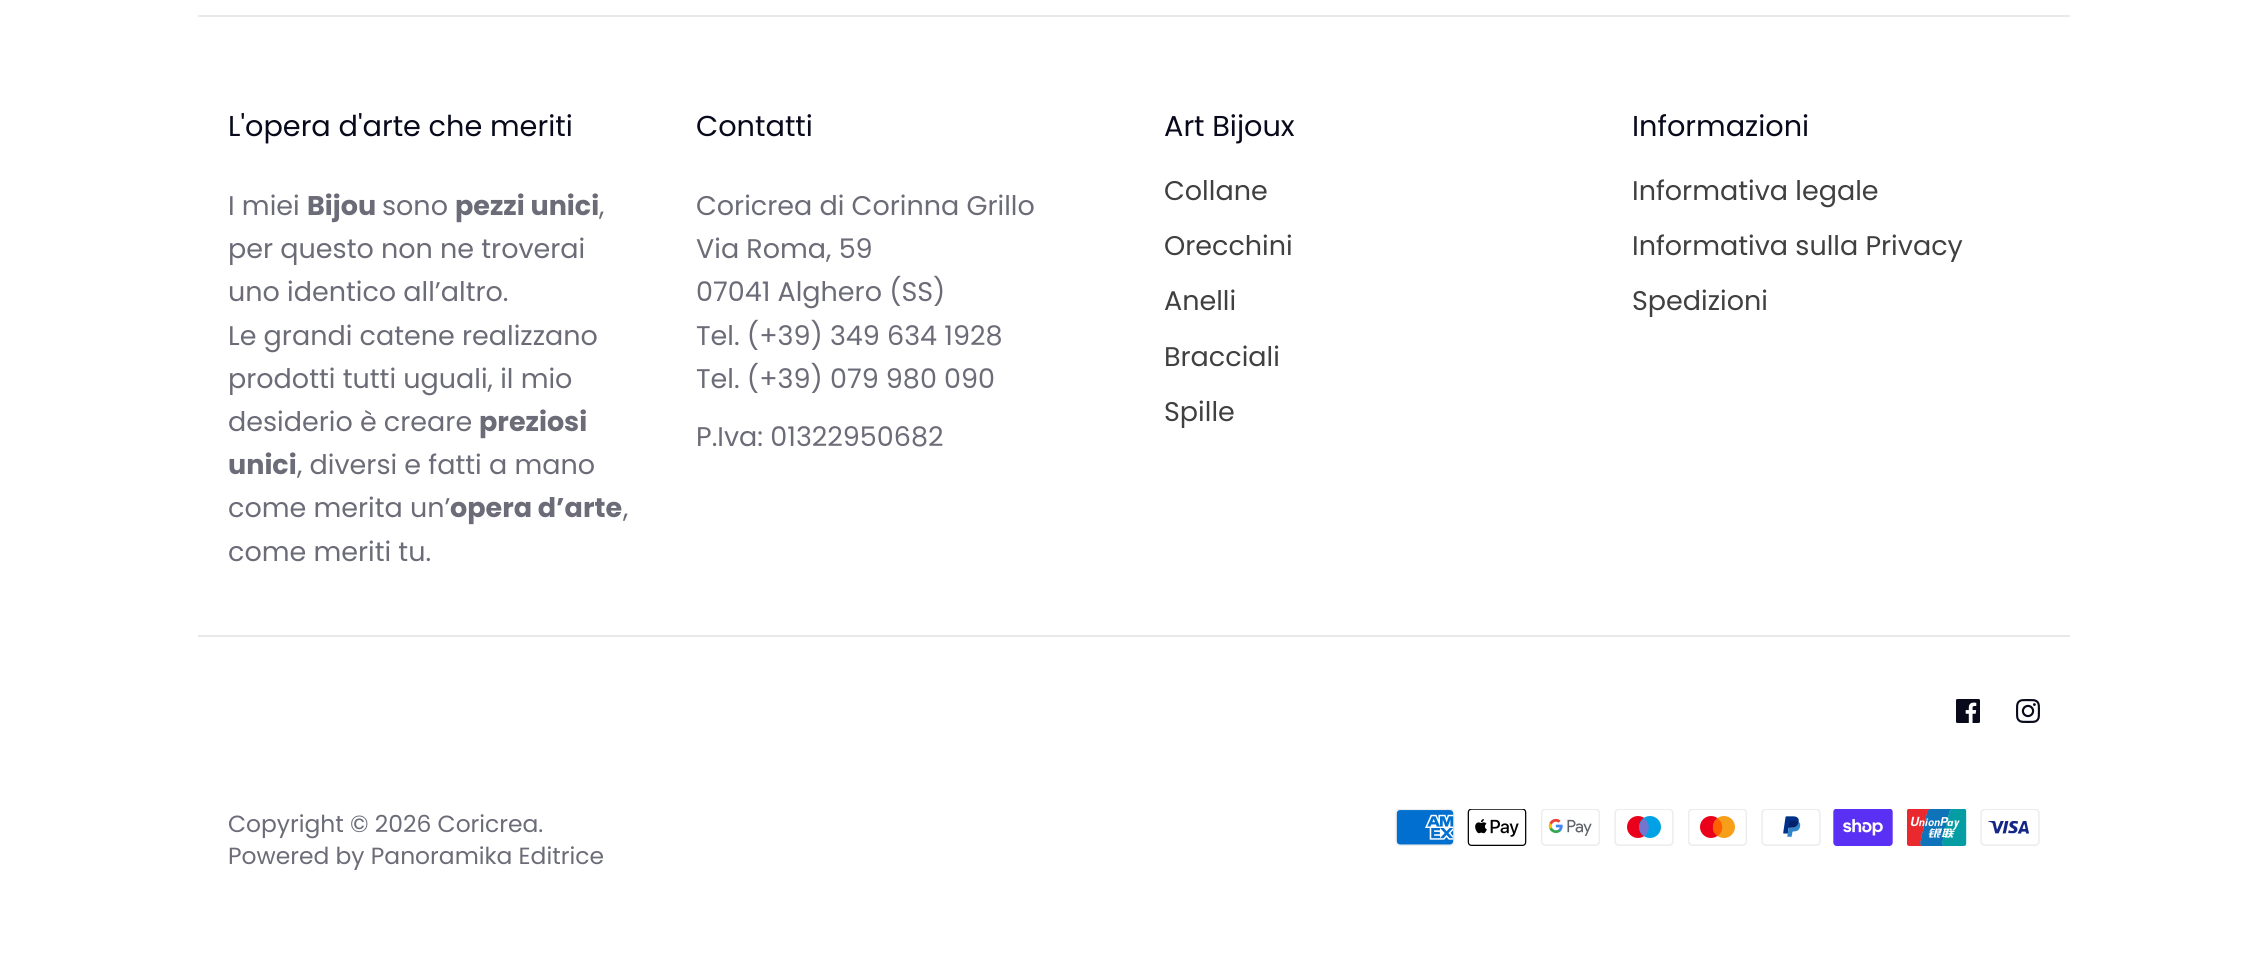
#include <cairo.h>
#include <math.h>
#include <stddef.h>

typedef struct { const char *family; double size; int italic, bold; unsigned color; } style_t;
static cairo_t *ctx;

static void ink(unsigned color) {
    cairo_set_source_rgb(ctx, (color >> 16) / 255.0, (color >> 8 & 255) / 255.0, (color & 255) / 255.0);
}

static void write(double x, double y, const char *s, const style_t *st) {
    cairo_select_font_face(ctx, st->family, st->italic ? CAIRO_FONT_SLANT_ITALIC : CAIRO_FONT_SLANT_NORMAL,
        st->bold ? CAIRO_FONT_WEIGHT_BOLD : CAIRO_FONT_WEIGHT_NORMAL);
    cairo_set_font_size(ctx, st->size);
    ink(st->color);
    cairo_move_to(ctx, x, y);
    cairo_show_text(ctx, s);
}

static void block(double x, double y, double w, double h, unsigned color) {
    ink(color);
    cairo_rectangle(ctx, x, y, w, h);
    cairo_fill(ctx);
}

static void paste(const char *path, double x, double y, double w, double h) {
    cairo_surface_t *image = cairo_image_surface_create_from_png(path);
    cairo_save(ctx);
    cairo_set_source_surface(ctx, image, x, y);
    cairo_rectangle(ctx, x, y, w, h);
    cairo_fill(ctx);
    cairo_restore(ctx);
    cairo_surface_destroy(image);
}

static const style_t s1 = {"Poppins", 28.75, 0, 0, 0x080a1c};
static const style_t s2 = {"Poppins", 27, 0, 0, 0x6b6c77};
static const style_t s3 = {"Poppins", 27, 0, 1, 0x6b6c77};
static const style_t s4 = {"Poppins", 27, 0, 0, 0x404040};
static const style_t s5 = {"Poppins", 23.4, 0, 0, 0x6b6c77};

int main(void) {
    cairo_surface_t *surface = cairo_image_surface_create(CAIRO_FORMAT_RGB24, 2267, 963);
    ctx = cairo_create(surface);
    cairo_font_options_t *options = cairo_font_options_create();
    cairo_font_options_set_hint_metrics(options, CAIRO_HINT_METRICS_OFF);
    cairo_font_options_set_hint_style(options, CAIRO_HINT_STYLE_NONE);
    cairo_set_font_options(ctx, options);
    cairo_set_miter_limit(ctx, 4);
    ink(0xffffff);
    cairo_paint(ctx);
    block(198, 15, 1872, 2, 0xe9e9eb);
    block(198, 635, 1872, 2, 0xe9e9eb);
    write(228, 136, "L'opera d'arte che meriti", &s1);
    write(228, 215, "I miei", &s2);
    write(307, 215, "Bijou", &s3);
    write(382, 215, "sono", &s2);
    write(455, 215, "pezzi unici", &s3);
    write(599, 215, ",", &s2);
    write(228, 258, "per questo non ne troverai", &s2);
    write(228, 301, "uno identico all’altro.", &s2);
    write(228, 345, "Le grandi catene realizzano", &s2);
    write(228, 388, "prodotti tutti uguali, il mio", &s2);
    write(228, 431, "desiderio è creare", &s2);
    write(479, 431, "preziosi", &s3);
    write(228, 474, "unici", &s3);
    write(297, 474, ", diversi e fatti a mano", &s2);
    write(228, 517, "come merita un’", &s2);
    write(450, 517, "opera d’arte", &s3);
    write(623, 517, ",", &s2);
    write(228, 561, "come meriti tu.", &s2);
    write(696, 136, "Contatti", &s1);
    write(696, 215, "Coricrea di Corinna Grillo", &s2);
    write(696, 258, "Via Roma, 59", &s2);
    write(696, 301, "07041 Alghero (SS)", &s2);
    write(696, 345, "Tel. (+39) 349 634 1928", &s2);
    write(696, 388, "Tel. (+39) 079 980 090", &s2);
    write(696, 446, "P.Iva: 01322950682", &s2);
    write(1164, 136, "Art Bijoux", &s1);
    write(1164, 200, "Collane", &s4);
    write(1164, 255, "Orecchini", &s4);
    write(1164, 310, "Anelli", &s4);
    write(1164, 366, "Bracciali", &s4);
    write(1164, 421, "Spille", &s4);
    write(1632, 136, "Informazioni", &s1);
    write(1632, 200, "Informativa legale", &s4);
    write(1632, 255, "Informativa sulla Privacy", &s4);
    write(1632, 310, "Spedizioni", &s4);
    paste("pic1.png", 1956, 699, 24, 24);
    paste("pic2.png", 2016, 699, 24, 24);
    write(228, 832, "Copyright © 2026 Coricrea.", &s5);
    write(228, 864, "Powered by Panoramika Editrice", &s5);
    paste("pic3.png", 1395, 809, 60, 37);
    paste("pic4.png", 1467, 809, 60, 37);
    paste("pic5.png", 1541, 809, 59, 37);
    paste("pic6.png", 1614, 809, 60, 37);
    paste("pic7.png", 1688, 809, 59, 37);
    paste("pic8.png", 1761, 809, 60, 37);
    paste("pic9.png", 1833, 809, 60, 37);
    paste("pic10.png", 1907, 809, 60, 37);
    paste("pic11.png", 1980, 809, 60, 37);
    cairo_surface_write_to_png(surface, "screenshot.png");
    cairo_font_options_destroy(options);
    cairo_destroy(ctx);
    cairo_surface_destroy(surface);
    return 0;
}
